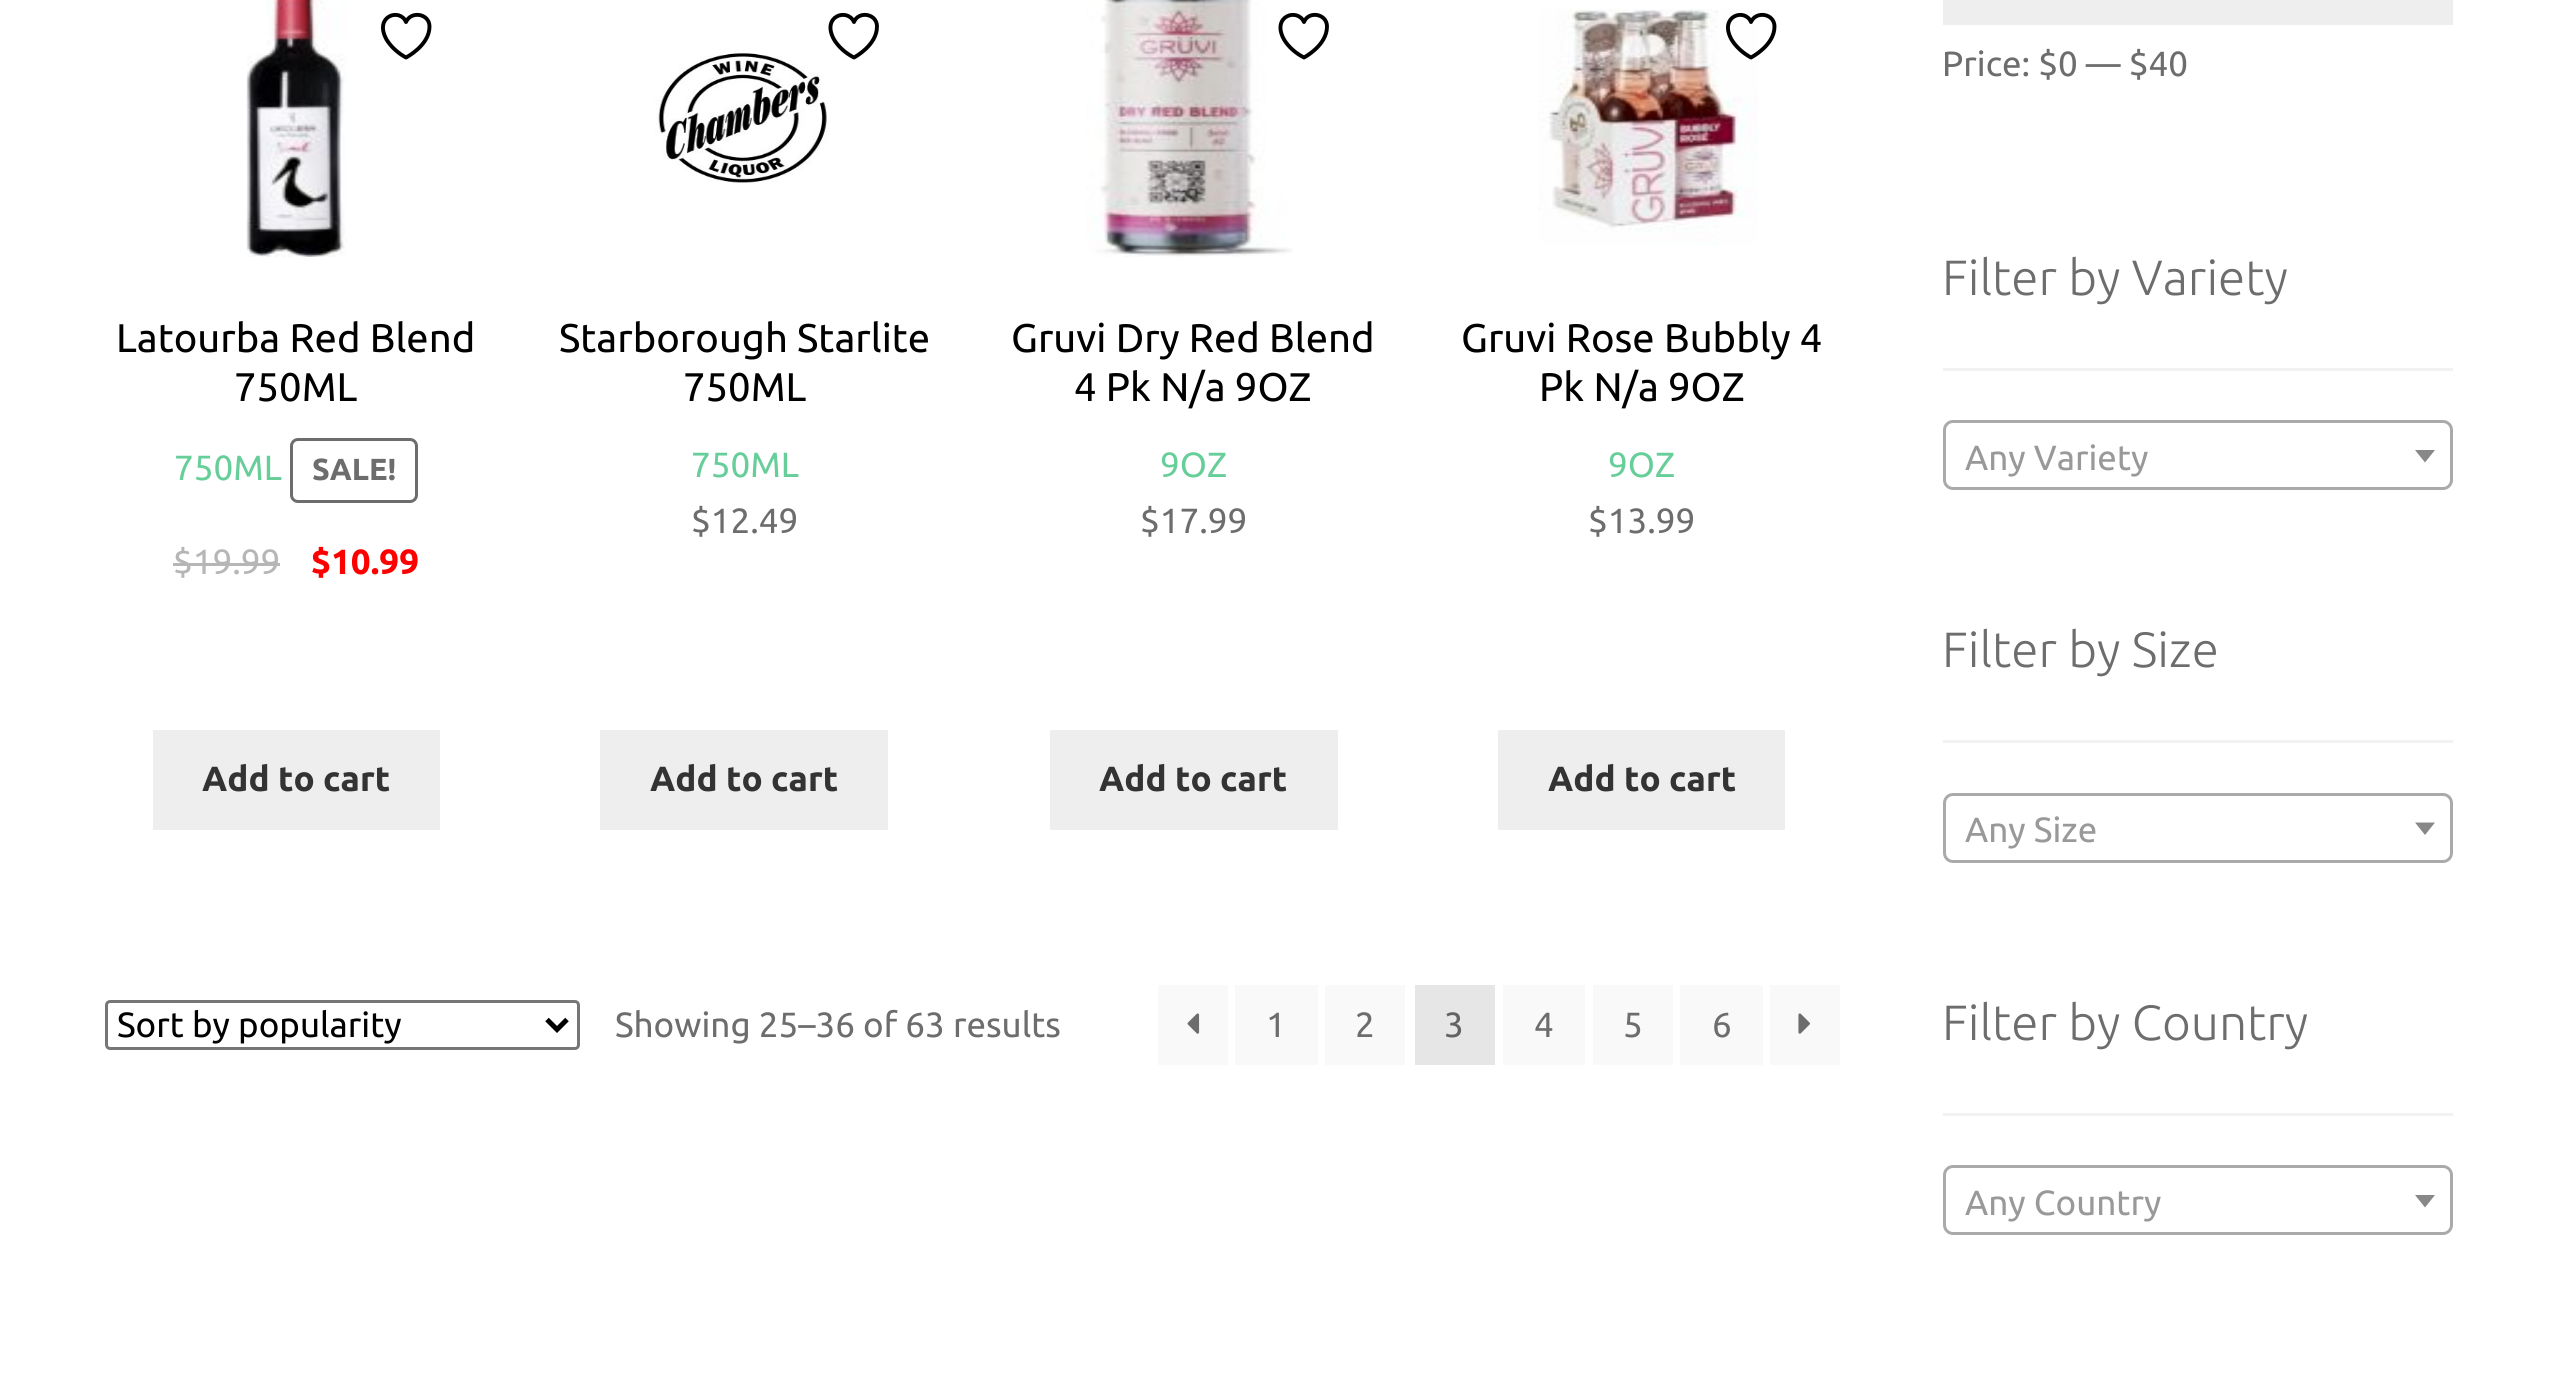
#include <cairo.h>
#include <math.h>
#include <stddef.h>

typedef struct { const char *family; double size; int italic, bold; unsigned color; } style_t;
static cairo_t *ctx;

static void ink(unsigned color) {
    cairo_set_source_rgb(ctx, (color >> 16) / 255.0, (color >> 8 & 255) / 255.0, (color & 255) / 255.0);
}

static void write(double x, double y, const char *s, const style_t *st) {
    cairo_select_font_face(ctx, st->family, st->italic ? CAIRO_FONT_SLANT_ITALIC : CAIRO_FONT_SLANT_NORMAL,
        st->bold ? CAIRO_FONT_WEIGHT_BOLD : CAIRO_FONT_WEIGHT_NORMAL);
    cairo_set_font_size(ctx, st->size);
    ink(st->color);
    cairo_move_to(ctx, x, y);
    cairo_show_text(ctx, s);
}

static void block(double x, double y, double w, double h, unsigned color) {
    ink(color);
    cairo_rectangle(ctx, x, y, w, h);
    cairo_fill(ctx);
}

static void round_path(double x, double y, double w, double h, double r) {
    cairo_new_sub_path(ctx);
    cairo_arc(ctx, x + w - r, y + h - r, r, 0, M_PI / 2);
    cairo_arc(ctx, x + r, y + h - r, r, M_PI / 2, M_PI);
    cairo_arc(ctx, x + r, y + r, r, M_PI, 1.5 * M_PI);
    cairo_arc(ctx, x + w - r, y + r, r, 1.5 * M_PI, 2 * M_PI);
    cairo_close_path(ctx);
}

static void paste(const char *path, double x, double y, double w, double h) {
    cairo_surface_t *image = cairo_image_surface_create_from_png(path);
    cairo_save(ctx);
    cairo_set_source_surface(ctx, image, x, y);
    cairo_rectangle(ctx, x, y, w, h);
    cairo_fill(ctx);
    cairo_restore(ctx);
    cairo_surface_destroy(image);
}

static const style_t s1 = {"Ubuntu", 40, 0, 0, 0x000000};
static const style_t s2 = {"Ubuntu", 35, 0, 0, 0x67ce9a};
static const style_t s3 = {"Ubuntu", 30.5, 0, 1, 0x6d6d6d};
static const style_t s4 = {"Ubuntu", 35, 0, 0, 0xb6b6b6};
static const style_t s5 = {"Ubuntu", 35, 0, 1, 0xff0000};
static const style_t s6 = {"Ubuntu", 35, 0, 1, 0x333333};
static const style_t s7 = {"Ubuntu", 35, 0, 0, 0x6d6d6d};
static const style_t s8 = {"Ubuntu", 35, 0, 0, 0x000000};
static const style_t s9 = {"Ubuntu", 35, 0, 0, 0x636363};
static const style_t s10 = {"Ubuntu Light", 49.5, 0, 0, 0x6d6d6d};
static const style_t s11 = {"Ubuntu", 35, 0, 0, 0x999999};

int main(void) {
    cairo_surface_t *surface = cairo_image_surface_create(CAIRO_FORMAT_RGB24, 2556, 1395);
    ctx = cairo_create(surface);
    cairo_font_options_t *options = cairo_font_options_create();
    cairo_font_options_set_hint_metrics(options, CAIRO_HINT_METRICS_OFF);
    cairo_font_options_set_hint_style(options, CAIRO_HINT_STYLE_NONE);
    cairo_set_font_options(ctx, options);
    cairo_set_miter_limit(ctx, 4);
    ink(0xffffff);
    cairo_paint(ctx);
    cairo_new_path(ctx);
    cairo_move_to(ctx, 429.5, 26.5);
    cairo_curve_to(ctx, 429.5, 13.5, 411, 10.5, 406, 22);
    cairo_curve_to(ctx, 400, 7.5, 373.5, 16, 386.5, 39.5);
    cairo_curve_to(ctx, 391, 47, 398.5, 53.5, 406, 57.5);
    cairo_curve_to(ctx, 406, 57.5, 429.5, 45.5, 429.5, 26.5);
    cairo_close_path(ctx);
    ink(0x000000);
    cairo_set_line_width(ctx, 3.9);
    cairo_set_line_cap(ctx, CAIRO_LINE_CAP_ROUND);
    cairo_set_line_join(ctx, CAIRO_LINE_JOIN_ROUND);
    cairo_stroke(ctx);
    paste("pic1.png", 246, 0, 101, 257);
    write(116, 352, "Latourba Red Blend", &s1);
    write(234, 401, "750ML", &s1);
    write(174, 480, "750ML", &s2);
    round_path(291.5, 439.5, 125, 62, 6.5);
    ink(0x6d6d6d);
    cairo_set_line_width(ctx, 3);
    cairo_set_line_cap(ctx, CAIRO_LINE_CAP_BUTT);
    cairo_set_line_join(ctx, CAIRO_LINE_JOIN_MITER);
    cairo_stroke(ctx);
    write(312, 480, "SALE!", &s3);
    write(173, 574, "$19.99", &s4);
    block(173, 563, 107, 3, 0xb6b6b6);
    write(311, 574, "$10.99", &s5);
    block(153, 730, 287, 100, 0xeeeeee);
    write(202, 791, "Add to cart", &s6);
    cairo_new_path(ctx);
    cairo_move_to(ctx, 877, 26.5);
    cairo_curve_to(ctx, 877, 13.5, 858.5, 10.5, 854, 22);
    cairo_curve_to(ctx, 847.5, 7.5, 821, 16, 834, 39.5);
    cairo_curve_to(ctx, 838.5, 47, 846, 53.5, 854, 57.5);
    cairo_curve_to(ctx, 854, 57.5, 877, 45.5, 877, 26.5);
    cairo_close_path(ctx);
    ink(0x000000);
    cairo_set_line_width(ctx, 3.9);
    cairo_set_line_cap(ctx, CAIRO_LINE_CAP_ROUND);
    cairo_set_line_join(ctx, CAIRO_LINE_JOIN_ROUND);
    cairo_stroke(ctx);
    paste("pic2.png", 655, 51, 173, 132);
    write(559, 352, "Starborough Starlite", &s1);
    write(683, 401, "750ML", &s1);
    write(691, 477, "750ML", &s2);
    write(691, 533, "$12.49", &s7);
    block(600, 730, 288, 100, 0xeeeeee);
    write(650, 791, "Add to cart", &s6);
    paste("pic3.png", 1086, 0, 207, 257);
    cairo_new_path(ctx);
    cairo_move_to(ctx, 1327, 26.5);
    cairo_curve_to(ctx, 1327, 13.5, 1308.5, 10.5, 1304, 22);
    cairo_curve_to(ctx, 1297.5, 7.5, 1271, 16, 1284, 39.5);
    cairo_curve_to(ctx, 1288.5, 47, 1296, 53.5, 1304, 57.5);
    cairo_curve_to(ctx, 1304, 57.5, 1327, 45.5, 1327, 26.5);
    cairo_close_path(ctx);
    ink(0x000000);
    cairo_stroke(ctx);
    write(1011, 352, "Gruvi Dry Red Blend", &s1);
    write(1074, 401, "4 Pk N/a 9OZ", &s1);
    write(1160, 477, "9OZ", &s2);
    write(1140, 533, "$17.99", &s7);
    block(1050, 730, 288, 100, 0xeeeeee);
    write(1099, 791, "Add to cart", &s6);
    paste("pic4.png", 1538, 9, 220, 237);
    cairo_new_path(ctx);
    cairo_move_to(ctx, 1774.5, 26.5);
    cairo_curve_to(ctx, 1774.5, 13.5, 1756, 10.5, 1751, 22);
    cairo_curve_to(ctx, 1745, 7.5, 1718.5, 16, 1731.5, 39.5);
    cairo_curve_to(ctx, 1736, 47, 1743.5, 53.5, 1751, 57.5);
    cairo_curve_to(ctx, 1751, 57.5, 1774.5, 45.5, 1774.5, 26.5);
    cairo_close_path(ctx);
    ink(0x000000);
    cairo_stroke(ctx);
    write(1461, 352, "Gruvi Rose Bubbly 4", &s1);
    write(1539, 401, "Pk N/a 9OZ", &s1);
    write(1608, 477, "9OZ", &s2);
    write(1588, 533, "$13.99", &s7);
    block(1498, 730, 287, 100, 0xeeeeee);
    write(1548, 791, "Add to cart", &s6);
    round_path(106.5, 1001.5, 472, 47, 3.5);
    ink(0x767676);
    cairo_set_line_width(ctx, 3);
    cairo_set_line_cap(ctx, CAIRO_LINE_CAP_BUTT);
    cairo_set_line_join(ctx, CAIRO_LINE_JOIN_MITER);
    cairo_stroke(ctx);
    cairo_new_path(ctx);
    cairo_move_to(ctx, 547, 1019.5);
    cairo_line_to(ctx, 557, 1029.5);
    cairo_line_to(ctx, 567, 1019.5);
    ink(0x000000);
    cairo_set_line_width(ctx, 5);
    cairo_stroke(ctx);
    write(117, 1037, "Sort by popularity", &s8);
    write(615, 1037, "Showing 25–36 of 63 results", &s7);
    block(1158, 985, 70, 80, 0xf9f9f9);
    paste("pic5.png", 1187, 1013, 13, 21);
    block(1235, 985, 83, 80, 0xf9f9f9);
    write(1266, 1037, "1", &s7);
    block(1325, 985, 80, 80, 0xf9f9f9);
    write(1355, 1037, "2", &s7);
    block(1415, 985, 80, 80, 0xe6e6e6);
    write(1444, 1037, "3", &s9);
    block(1503, 985, 82, 80, 0xf9f9f9);
    write(1534, 1037, "4", &s7);
    block(1593, 985, 80, 80, 0xf9f9f9);
    write(1623, 1037, "5", &s7);
    block(1680, 985, 83, 80, 0xf9f9f9);
    write(1712, 1037, "6", &s7);
    block(1770, 985, 70, 80, 0xf9f9f9);
    paste("pic6.png", 1798, 1013, 12, 21);
    block(1943, 0, 510, 25, 0xeeeeee);
    write(1942, 76, "Price: $0 — $40", &s7);
    block(1943, 368, 510, 3, 0xf2f2f2);
    write(1942, 295, "Filter by Variety", &s10);
    round_path(1944.5, 421.5, 507, 67, 8.5);
    ink(0xaaaaaa);
    cairo_set_line_width(ctx, 3);
    cairo_stroke(ctx);
    write(1965, 470, "Any Variety", &s11);
    ink(0x888888);
    cairo_new_path(ctx);
    cairo_move_to(ctx, 2415, 450);
    cairo_line_to(ctx, 2435, 450);
    cairo_line_to(ctx, 2425, 462.5);
    cairo_close_path(ctx);
    cairo_fill(ctx);
    block(1943, 740, 510, 3, 0xf2f2f2);
    write(1942, 667, "Filter by Size", &s10);
    round_path(1944.5, 794.5, 507, 67, 8.5);
    ink(0xaaaaaa);
    cairo_stroke(ctx);
    write(1965, 842, "Any Size", &s11);
    ink(0x888888);
    cairo_new_path(ctx);
    cairo_move_to(ctx, 2415, 822.5);
    cairo_line_to(ctx, 2435, 822.5);
    cairo_line_to(ctx, 2425, 835);
    cairo_close_path(ctx);
    cairo_fill(ctx);
    block(1943, 1113, 510, 3, 0xf2f2f2);
    write(1942, 1040, "Filter by Country", &s10);
    round_path(1944.5, 1166.5, 507, 67, 8.5);
    ink(0xaaaaaa);
    cairo_stroke(ctx);
    write(1965, 1215, "Any Country", &s11);
    ink(0x888888);
    cairo_new_path(ctx);
    cairo_move_to(ctx, 2415, 1195);
    cairo_line_to(ctx, 2435, 1195);
    cairo_line_to(ctx, 2425, 1207.5);
    cairo_close_path(ctx);
    cairo_fill(ctx);
    cairo_surface_write_to_png(surface, "screenshot.png");
    cairo_font_options_destroy(options);
    cairo_destroy(ctx);
    cairo_surface_destroy(surface);
    return 0;
}
